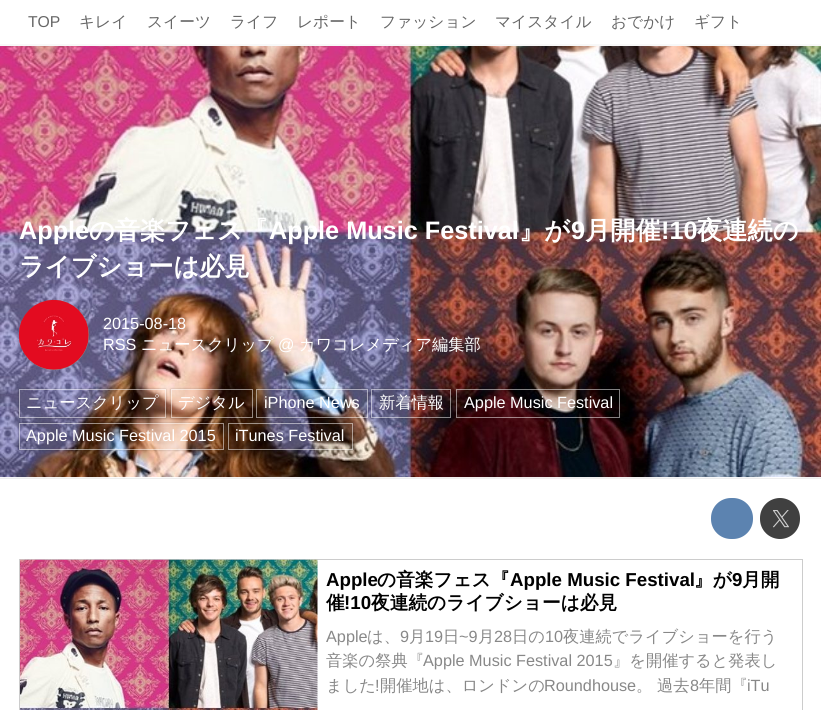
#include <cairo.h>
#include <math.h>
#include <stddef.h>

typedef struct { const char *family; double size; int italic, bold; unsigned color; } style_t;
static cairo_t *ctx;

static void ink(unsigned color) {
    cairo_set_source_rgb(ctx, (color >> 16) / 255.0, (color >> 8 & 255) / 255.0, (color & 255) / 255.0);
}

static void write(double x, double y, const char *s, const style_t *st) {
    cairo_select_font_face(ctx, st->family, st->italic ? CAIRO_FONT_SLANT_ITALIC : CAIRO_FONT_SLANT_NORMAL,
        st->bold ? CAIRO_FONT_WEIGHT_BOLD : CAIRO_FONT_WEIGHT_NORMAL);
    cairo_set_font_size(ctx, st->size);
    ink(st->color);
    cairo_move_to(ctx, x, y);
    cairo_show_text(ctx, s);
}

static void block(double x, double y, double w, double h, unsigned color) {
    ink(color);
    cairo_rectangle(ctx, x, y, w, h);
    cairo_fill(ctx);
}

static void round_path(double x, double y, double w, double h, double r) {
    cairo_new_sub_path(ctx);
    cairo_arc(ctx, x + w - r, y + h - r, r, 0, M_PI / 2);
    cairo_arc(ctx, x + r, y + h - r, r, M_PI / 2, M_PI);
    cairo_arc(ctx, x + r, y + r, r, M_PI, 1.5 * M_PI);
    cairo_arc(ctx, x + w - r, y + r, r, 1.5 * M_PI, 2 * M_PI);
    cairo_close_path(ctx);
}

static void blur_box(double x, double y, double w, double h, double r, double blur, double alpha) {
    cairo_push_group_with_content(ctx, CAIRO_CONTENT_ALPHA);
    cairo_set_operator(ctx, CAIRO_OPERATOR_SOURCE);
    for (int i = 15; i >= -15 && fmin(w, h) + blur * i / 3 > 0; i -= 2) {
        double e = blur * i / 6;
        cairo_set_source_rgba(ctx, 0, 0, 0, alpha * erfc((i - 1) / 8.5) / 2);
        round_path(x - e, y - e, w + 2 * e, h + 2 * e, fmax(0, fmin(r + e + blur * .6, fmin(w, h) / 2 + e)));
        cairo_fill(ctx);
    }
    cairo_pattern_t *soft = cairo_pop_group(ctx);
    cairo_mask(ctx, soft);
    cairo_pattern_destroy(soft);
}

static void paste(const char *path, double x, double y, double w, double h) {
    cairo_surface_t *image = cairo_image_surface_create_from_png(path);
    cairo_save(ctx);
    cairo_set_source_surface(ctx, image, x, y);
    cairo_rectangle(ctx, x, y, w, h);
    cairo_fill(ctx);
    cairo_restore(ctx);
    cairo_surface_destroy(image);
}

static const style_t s1 = {"Liberation Sans", 15.75, 0, 0, 0x666666};
static const style_t s2 = {"WenQuanYi Zen Hei Medium", 15.75, 0, 0, 0x666666};
static const style_t s3 = {"Liberation Sans", 25.25, 0, 1, 0xffffff};
static const style_t s4 = {"WenQuanYi Zen Hei", 25.25, 0, 1, 0xffffff};
static const style_t s5 = {"Liberation Sans", 16.25, 0, 0, 0xffffff};
static const style_t s6 = {"WenQuanYi Zen Hei Medium", 16.25, 0, 0, 0xffffff};
static const style_t s7 = {"Liberation Sans", 18.7, 0, 1, 0x000000};
static const style_t s8 = {"WenQuanYi Zen Hei", 18.7, 0, 1, 0x000000};
static const style_t s9 = {"Liberation Sans", 16.25, 0, 0, 0x888888};
static const style_t s10 = {"WenQuanYi Zen Hei Medium", 16.25, 0, 0, 0x888888};

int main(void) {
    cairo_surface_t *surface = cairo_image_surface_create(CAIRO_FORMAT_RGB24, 821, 710);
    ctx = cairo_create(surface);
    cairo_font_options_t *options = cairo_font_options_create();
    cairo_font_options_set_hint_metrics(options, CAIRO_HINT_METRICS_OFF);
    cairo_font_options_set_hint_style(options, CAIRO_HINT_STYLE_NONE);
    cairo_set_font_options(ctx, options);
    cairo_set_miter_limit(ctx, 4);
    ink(0xffffff);
    cairo_paint(ctx);
    write(28, 27, "TOP", &s1);
    write(79, 27, "キレイ", &s2);
    write(147, 27, "スイーツ", &s2);
    write(230, 27, "ライフ", &s2);
    write(297, 27, "レポート", &s2);
    write(380, 27, "ファッション", &s2);
    write(495, 27, "マイスタイル", &s2);
    write(611, 27, "おでかけ", &s2);
    write(694, 27, "ギフト", &s2);
    block(0, 44, 821, 2, 0xf8f8f8);
    block(0, 478, 821, 1, 0xeeeeee);
    paste("pic1.png", 0, 46, 821, 432);
    write(19, 239, "Apple", &s3);
    write(89, 239, "の音楽フェス『", &s4);
    write(269, 239, "Apple Music Festival", &s3);
    write(519, 239, "』が", &s4);
    write(571, 239, "9", &s3);
    write(585, 239, "月開催", &s4);
    write(661, 239, "!10", &s3);
    write(697, 239, "夜連続の", &s4);
    write(19, 275, "ライブショーは必見", &s4);
    ink(0x888888);
    cairo_new_path(ctx);
    cairo_arc(ctx, 54, 335, 35, 0, 2 * M_PI);
    cairo_fill(ctx);
    paste("pic2.png", 18, 299, 71, 71);
    write(103, 329, "2015-08-18", &s5);
    write(103, 350, "RSS", &s5);
    write(141, 350, "ニュースクリップ", &s6);
    write(278, 350, "@", &s5);
    write(299, 350, "カワコレメディア編集部", &s6);
    cairo_save(ctx);
    cairo_set_fill_rule(ctx, CAIRO_FILL_RULE_EVEN_ODD);
    cairo_new_path(ctx);
    cairo_move_to(ctx, 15, 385);
    cairo_line_to(ctx, 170, 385);
    cairo_line_to(ctx, 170, 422);
    cairo_line_to(ctx, 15, 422);
    cairo_close_path(ctx);
    cairo_move_to(ctx, 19, 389);
    cairo_line_to(ctx, 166, 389);
    cairo_line_to(ctx, 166, 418);
    cairo_line_to(ctx, 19, 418);
    cairo_close_path(ctx);
    cairo_clip(ctx);
    ink(0x000000);
    blur_box(19, 389, 147, 29, 0, 1, 0.25);
    cairo_restore(ctx);
    cairo_rectangle(ctx, 19.5, 389.5, 146, 28);
    cairo_set_source_rgba(ctx, 1, 1, 1, 0.5);
    cairo_set_line_width(ctx, 1);
    cairo_stroke(ctx);
    write(26, 408, "ニュースクリップ", &s6);
    cairo_save(ctx);
    cairo_set_fill_rule(ctx, CAIRO_FILL_RULE_EVEN_ODD);
    cairo_new_path(ctx);
    cairo_move_to(ctx, 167, 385);
    cairo_line_to(ctx, 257, 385);
    cairo_line_to(ctx, 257, 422);
    cairo_line_to(ctx, 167, 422);
    cairo_close_path(ctx);
    cairo_move_to(ctx, 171, 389);
    cairo_line_to(ctx, 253, 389);
    cairo_line_to(ctx, 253, 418);
    cairo_line_to(ctx, 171, 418);
    cairo_close_path(ctx);
    cairo_clip(ctx);
    ink(0x000000);
    blur_box(171, 389, 82, 29, 0, 1, 0.25);
    cairo_restore(ctx);
    cairo_rectangle(ctx, 171.5, 389.5, 81, 28);
    cairo_set_source_rgba(ctx, 1, 1, 1, 0.5);
    cairo_stroke(ctx);
    write(178, 408, "デジタル", &s6);
    cairo_save(ctx);
    cairo_set_fill_rule(ctx, CAIRO_FILL_RULE_EVEN_ODD);
    cairo_new_path(ctx);
    cairo_move_to(ctx, 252, 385);
    cairo_line_to(ctx, 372, 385);
    cairo_line_to(ctx, 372, 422);
    cairo_line_to(ctx, 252, 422);
    cairo_close_path(ctx);
    cairo_move_to(ctx, 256, 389);
    cairo_line_to(ctx, 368, 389);
    cairo_line_to(ctx, 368, 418);
    cairo_line_to(ctx, 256, 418);
    cairo_close_path(ctx);
    cairo_clip(ctx);
    ink(0x000000);
    blur_box(256, 389, 112, 29, 0, 1, 0.25);
    cairo_restore(ctx);
    cairo_rectangle(ctx, 256.5, 389.5, 111, 28);
    cairo_set_source_rgba(ctx, 1, 1, 1, 0.5);
    cairo_stroke(ctx);
    write(264, 408, "iPhone News", &s5);
    cairo_save(ctx);
    cairo_set_fill_rule(ctx, CAIRO_FILL_RULE_EVEN_ODD);
    cairo_new_path(ctx);
    cairo_move_to(ctx, 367, 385);
    cairo_line_to(ctx, 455, 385);
    cairo_line_to(ctx, 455, 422);
    cairo_line_to(ctx, 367, 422);
    cairo_close_path(ctx);
    cairo_move_to(ctx, 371, 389);
    cairo_line_to(ctx, 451, 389);
    cairo_line_to(ctx, 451, 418);
    cairo_line_to(ctx, 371, 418);
    cairo_close_path(ctx);
    cairo_clip(ctx);
    ink(0x000000);
    blur_box(371, 389, 80, 29, 0, 1, 0.25);
    cairo_restore(ctx);
    cairo_rectangle(ctx, 371.5, 389.5, 79, 28);
    cairo_set_source_rgba(ctx, 1, 1, 1, 0.5);
    cairo_stroke(ctx);
    write(379, 408, "新着情報", &s6);
    cairo_rectangle(ctx, 456.5, 389.5, 163, 28);
    cairo_set_source_rgba(ctx, 1, 1, 1, 0.5);
    cairo_stroke(ctx);
    write(464, 408, "Apple Music Festival", &s5);
    cairo_save(ctx);
    cairo_set_fill_rule(ctx, CAIRO_FILL_RULE_EVEN_ODD);
    cairo_new_path(ctx);
    cairo_move_to(ctx, 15, 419);
    cairo_line_to(ctx, 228, 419);
    cairo_line_to(ctx, 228, 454);
    cairo_line_to(ctx, 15, 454);
    cairo_close_path(ctx);
    cairo_move_to(ctx, 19, 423);
    cairo_line_to(ctx, 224, 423);
    cairo_line_to(ctx, 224, 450);
    cairo_line_to(ctx, 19, 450);
    cairo_close_path(ctx);
    cairo_clip(ctx);
    ink(0x000000);
    blur_box(19, 423, 205, 27, 0, 1, 0.25);
    cairo_restore(ctx);
    cairo_rectangle(ctx, 19.5, 423.5, 204, 26);
    cairo_set_source_rgba(ctx, 1, 1, 1, 0.5);
    cairo_stroke(ctx);
    write(26, 441, "Apple Music Festival 2015", &s5);
    cairo_save(ctx);
    cairo_set_fill_rule(ctx, CAIRO_FILL_RULE_EVEN_ODD);
    cairo_new_path(ctx);
    cairo_move_to(ctx, 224, 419);
    cairo_line_to(ctx, 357, 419);
    cairo_line_to(ctx, 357, 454);
    cairo_line_to(ctx, 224, 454);
    cairo_close_path(ctx);
    cairo_move_to(ctx, 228, 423);
    cairo_line_to(ctx, 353, 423);
    cairo_line_to(ctx, 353, 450);
    cairo_line_to(ctx, 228, 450);
    cairo_close_path(ctx);
    cairo_clip(ctx);
    ink(0x000000);
    blur_box(228, 423, 125, 27, 0, 1, 0.25);
    cairo_restore(ctx);
    cairo_rectangle(ctx, 228.5, 423.5, 124, 26);
    cairo_set_source_rgba(ctx, 1, 1, 1, 0.5);
    cairo_stroke(ctx);
    write(235, 441, "iTunes Festival", &s5);
    ink(0x5c83b0);
    round_path(711, 498, 42, 41, 20);
    cairo_fill(ctx);
    ink(0x404040);
    round_path(760, 498, 40, 41, 20);
    cairo_fill(ctx);
    paste("pic3.png", 773, 510, 16, 18);
    cairo_rectangle(ctx, 19.5, 559.5, 783, 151);
    ink(0xcccccc);
    cairo_stroke(ctx);
    paste("pic4.png", 20, 559, 298, 151);
    write(326, 586, "Apple", &s7);
    write(377, 586, "の音楽フェス『", &s8);
    write(510, 586, "Apple Music Festival", &s7);
    write(694, 586, "』が", &s8);
    write(732, 586, "9", &s7);
    write(742, 586, "月開", &s8);
    write(326, 609, "催", &s8);
    write(344, 609, "!10", &s7);
    write(371, 609, "夜連続のライブショーは必見", &s8);
    write(326, 642, "Apple", &s9);
    write(367, 642, "は、", &s10);
    write(400, 642, "9", &s9);
    write(409, 642, "月", &s10);
    write(425, 642, "19", &s9);
    write(443, 642, "日", &s10);
    write(459, 642, "~9", &s9);
    write(478, 642, "月", &s10);
    write(494, 642, "28", &s9);
    write(512, 642, "日の", &s10);
    write(545, 642, "10", &s9);
    write(563, 642, "夜連続でライブショーを行う", &s10);
    write(326, 666, "音楽の祭典『", &s10);
    write(423, 666, "Apple Music Festival 2015", &s9);
    write(613, 666, "』を開催すると発表し", &s10);
    write(326, 691, "ました", &s10);
    write(375, 691, "!", &s9);
    write(380, 691, "開催地は、ロンドンの", &s10);
    write(544, 691, "Roundhouse", &s9);
    write(636, 691, "。 過去", &s10);
    write(690, 691, "8", &s9);
    write(699, 691, "年間『", &s10);
    write(747, 691, "iTu", &s9);
    cairo_surface_write_to_png(surface, "screenshot.png");
    cairo_font_options_destroy(options);
    cairo_destroy(ctx);
    cairo_surface_destroy(surface);
    return 0;
}
